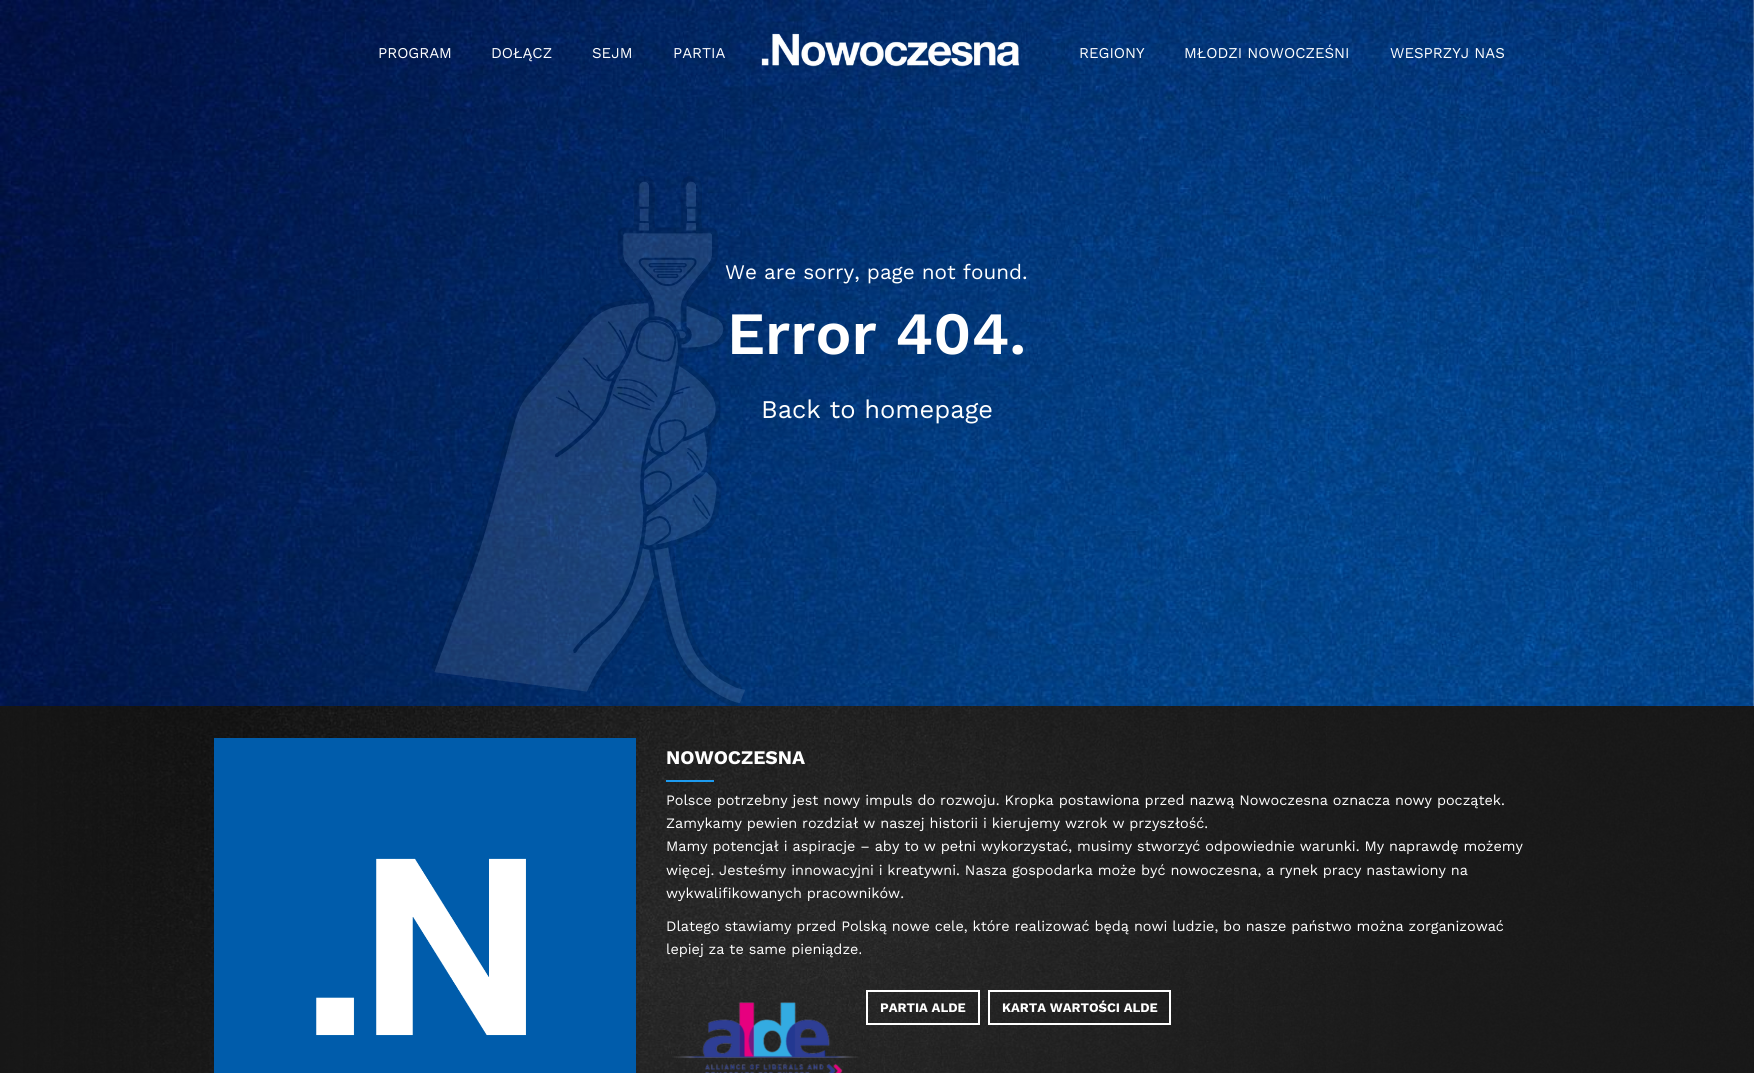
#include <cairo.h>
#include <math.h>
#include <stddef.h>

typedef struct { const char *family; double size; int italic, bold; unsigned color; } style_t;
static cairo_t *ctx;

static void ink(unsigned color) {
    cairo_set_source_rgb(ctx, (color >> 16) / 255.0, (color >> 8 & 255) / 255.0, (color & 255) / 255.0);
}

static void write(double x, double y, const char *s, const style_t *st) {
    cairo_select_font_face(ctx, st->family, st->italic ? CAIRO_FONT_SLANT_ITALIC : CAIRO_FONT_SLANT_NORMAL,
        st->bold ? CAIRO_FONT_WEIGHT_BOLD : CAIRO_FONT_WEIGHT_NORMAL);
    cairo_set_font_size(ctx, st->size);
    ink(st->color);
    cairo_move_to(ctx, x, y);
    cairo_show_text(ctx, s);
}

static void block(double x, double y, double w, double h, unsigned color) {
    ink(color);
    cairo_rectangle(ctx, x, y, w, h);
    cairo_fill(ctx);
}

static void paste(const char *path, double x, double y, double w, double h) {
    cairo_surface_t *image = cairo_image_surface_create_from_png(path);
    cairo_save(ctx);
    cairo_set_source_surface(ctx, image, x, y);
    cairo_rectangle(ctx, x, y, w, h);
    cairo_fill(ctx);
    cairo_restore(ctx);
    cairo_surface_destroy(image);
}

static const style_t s1 = {"Work Sans", 15, 0, 0, 0xffffff};
static const style_t s2 = {"Work Sans", 20.75, 0, 0, 0xffffff};
static const style_t s3 = {"Work Sans SemiBold", 60, 0, 0, 0xffffff};
static const style_t s4 = {"Work Sans", 25.5, 0, 0, 0xffffff};
static const style_t s5 = {"Work Sans", 19.25, 0, 1, 0xffffff};
static const style_t s6 = {"Work Sans", 14.4, 0, 0, 0xffffff};
static const style_t s7 = {"Work Sans", 13, 0, 1, 0xffffff};

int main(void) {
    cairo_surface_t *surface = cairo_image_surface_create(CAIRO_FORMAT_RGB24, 1754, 1073);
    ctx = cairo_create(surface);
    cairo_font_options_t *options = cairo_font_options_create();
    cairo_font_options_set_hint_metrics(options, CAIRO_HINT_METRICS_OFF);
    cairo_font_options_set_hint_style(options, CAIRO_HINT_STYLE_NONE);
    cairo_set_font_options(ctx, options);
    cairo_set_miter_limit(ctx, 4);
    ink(0xffffff);
    cairo_paint(ctx);
    paste("pic1.png", 0, 0, 1754, 706);
    paste("pic2.png", 761, 33, 259, 34);
    write(378, 58, "PROGRAM", &s1);
    write(491, 58, "DOŁĄCZ", &s1);
    write(592, 58, "SEJM", &s1);
    write(673, 58, "PARTIA", &s1);
    write(1079, 58, "REGIONY", &s1);
    write(1184, 58, "MŁODZI NOWOCZEŚNI", &s1);
    write(1390, 58, "WESPRZYJ NAS", &s1);
    paste("pic3.png", 432, 176, 313, 530);
    write(725, 279, "We are sorry, page not found.", &s2);
    write(727, 354, "Error 404.", &s3);
    write(761, 418, "Back to homepage", &s4);
    paste("pic4.png", 0, 706, 1754, 367);
    paste("pic5.png", 214, 738, 422, 335);
    write(666, 764, "NOWOCZESNA", &s5);
    block(666, 780, 48, 2, 0x1d9bf0);
    write(666, 805, "Polsce potrzebny jest nowy impuls do rozwoju. Kropka postawiona przed nazwą Nowoczesna oznacza nowy początek.", &s6);
    write(666, 828, "Zamykamy pewien rozdział w naszej historii i kierujemy wzrok w przyszłość.", &s6);
    write(666, 851, "Mamy potencjał i aspiracje – aby to w pełni wykorzystać, musimy stworzyć odpowiednie warunki. My naprawdę możemy", &s6);
    write(666, 875, "więcej. Jesteśmy innowacyjni i kreatywni. Nasza gospodarka może być nowoczesna, a rynek pracy nastawiony na", &s6);
    write(666, 898, "wykwalifikowanych pracowników.", &s6);
    write(666, 931, "Dlatego stawiamy przed Polską nowe cele, które realizować będą nowi ludzie, bo nasze państwo można zorganizować", &s6);
    write(666, 954, "lepiej za te same pieniądze.", &s6);
    paste("pic6.png", 672, 1002, 186, 71);
    cairo_rectangle(ctx, 867, 991, 112, 33);
    cairo_stroke(ctx);
    write(880, 1012, "PARTIA ALDE", &s7);
    cairo_rectangle(ctx, 989, 991, 181, 33);
    cairo_stroke(ctx);
    write(1002, 1012, "KARTA WARTOŚCI ALDE", &s7);
    cairo_surface_write_to_png(surface, "screenshot.png");
    cairo_font_options_destroy(options);
    cairo_destroy(ctx);
    cairo_surface_destroy(surface);
    return 0;
}
